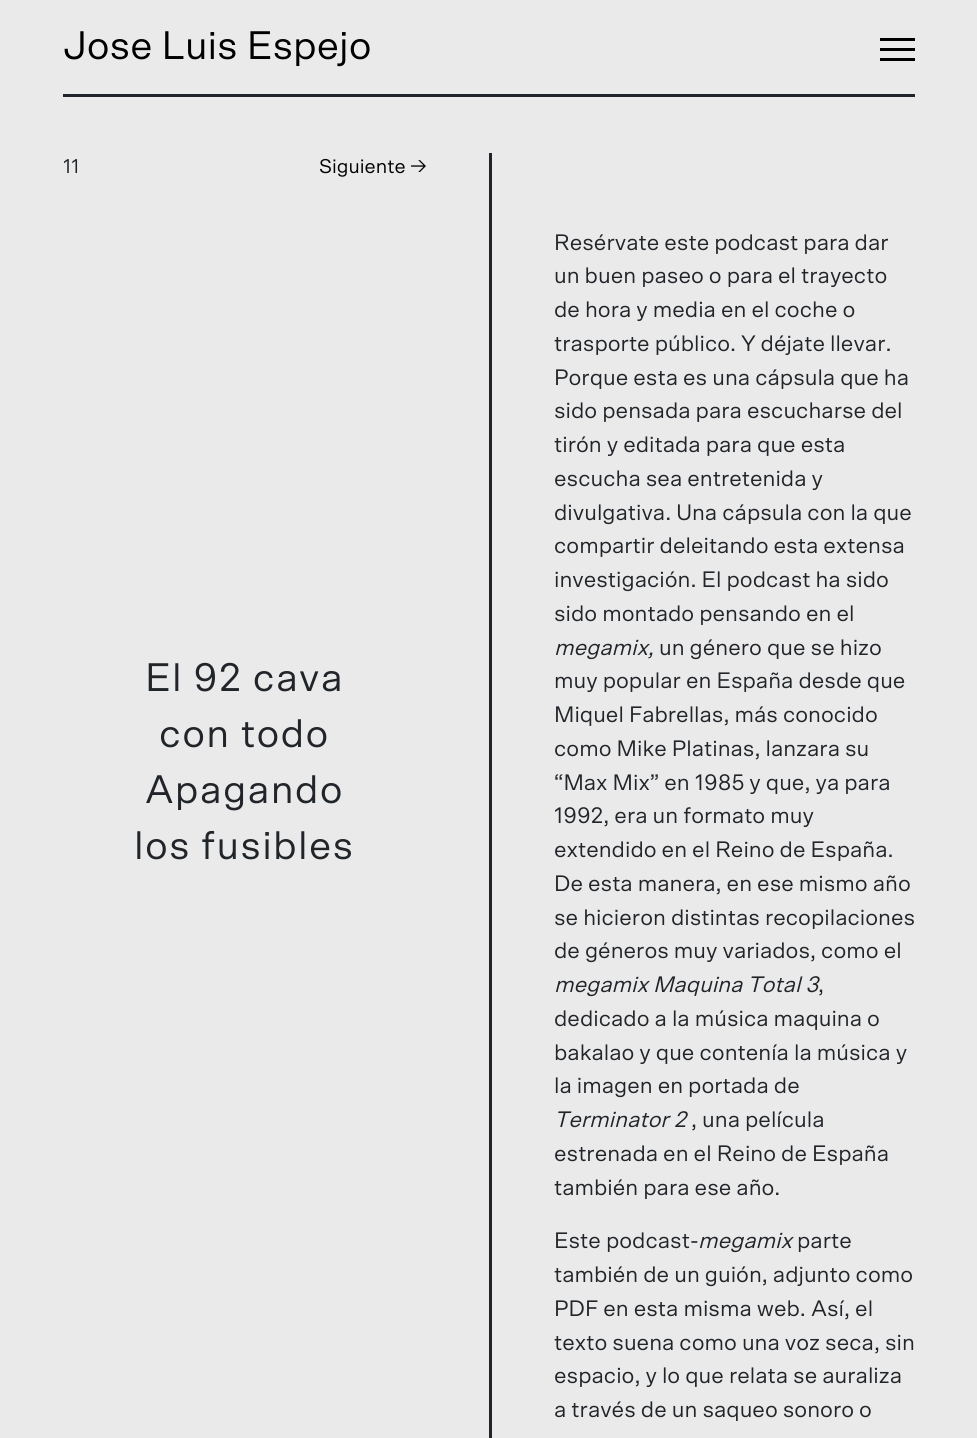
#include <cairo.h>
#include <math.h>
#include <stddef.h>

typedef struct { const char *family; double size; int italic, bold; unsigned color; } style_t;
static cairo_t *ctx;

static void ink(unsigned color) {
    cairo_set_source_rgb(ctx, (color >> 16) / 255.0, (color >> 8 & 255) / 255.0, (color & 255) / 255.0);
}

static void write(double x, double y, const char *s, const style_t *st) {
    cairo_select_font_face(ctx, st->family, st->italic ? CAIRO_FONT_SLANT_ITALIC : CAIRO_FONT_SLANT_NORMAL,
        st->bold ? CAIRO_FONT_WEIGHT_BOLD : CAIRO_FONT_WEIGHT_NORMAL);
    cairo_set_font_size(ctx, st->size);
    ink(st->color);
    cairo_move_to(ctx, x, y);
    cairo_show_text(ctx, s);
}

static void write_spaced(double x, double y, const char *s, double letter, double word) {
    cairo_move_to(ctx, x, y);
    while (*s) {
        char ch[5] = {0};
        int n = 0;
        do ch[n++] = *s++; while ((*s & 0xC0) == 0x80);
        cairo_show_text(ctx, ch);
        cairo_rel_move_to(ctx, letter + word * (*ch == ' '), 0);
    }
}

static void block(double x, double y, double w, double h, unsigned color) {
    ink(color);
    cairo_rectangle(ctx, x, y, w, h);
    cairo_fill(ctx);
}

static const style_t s1 = {"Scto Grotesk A", 40, 0, 0, 0x000000};
static const style_t s2 = {"Scto Grotesk A", 20, 0, 0, 0x212529};
static const style_t s3 = {"Scto Grotesk A", 20, 0, 0, 0x000000};
static const style_t s4 = {"Scto Grotesk A", 22.5, 0, 0, 0x212529};
static const style_t s5 = {"Scto Grotesk A", 22.5, 1, 0, 0x212529};

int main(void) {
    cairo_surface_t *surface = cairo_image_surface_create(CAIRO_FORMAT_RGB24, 977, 1438);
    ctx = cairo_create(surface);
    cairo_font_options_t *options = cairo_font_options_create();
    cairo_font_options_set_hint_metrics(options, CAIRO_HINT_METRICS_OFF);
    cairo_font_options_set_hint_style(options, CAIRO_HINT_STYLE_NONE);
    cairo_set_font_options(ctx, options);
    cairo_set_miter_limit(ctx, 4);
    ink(0xeaeaea);
    cairo_paint(ctx);
    block(63, 94, 852, 3, 0x212529);
    write(63, 59, "Jose Luis Espejo", &s1);
    block(880, 38, 35, 3, 0x000000);
    block(880, 48, 35, 3, 0x000000);
    block(880, 58, 35, 3, 0x000000);
    write(63, 173, "11", &s2);
    write(319, 173, "Siguiente →", &s3);
    cairo_set_font_size(ctx, 40);
    ink(0x212529);
    write_spaced(145, 691, "El 92 cava", 1.25, 0);
    write_spaced(159, 747, "con todo", 1.25, 0);
    write_spaced(145, 803, "Apagando", 1.25, 0);
    write_spaced(134, 859, "los fusibles", 1.25, 0);
    block(489, 153, 3, 1285, 0x212529);
    write(554, 250, "Resérvate este podcast para dar", &s4);
    write(554, 283, "un buen paseo o para el trayecto", &s4);
    write(554, 317, "de hora y media en el coche o", &s4);
    write(554, 351, "trasporte público. Y déjate llevar.", &s4);
    write(554, 385, "Porque esta es una cápsula que ha", &s4);
    write(554, 418, "sido pensada para escucharse del", &s4);
    write(554, 452, "tirón y editada para que esta", &s4);
    write(554, 486, "escucha sea entretenida y", &s4);
    write(554, 520, "divulgativa. Una cápsula con la que", &s4);
    write(554, 553, "compartir deleitando esta extensa", &s4);
    write(554, 587, "investigación. El podcast ha sido", &s4);
    write(554, 621, "sido montado pensando en el", &s4);
    write(554, 655, "megamix,", &s5);
    write(659, 655, "un género que se hizo", &s4);
    write(554, 688, "muy popular en España desde que", &s4);
    write(554, 722, "Miquel Fabrellas, más conocido", &s4);
    write(554, 756, "como Mike Platinas, lanzara su", &s4);
    write(554, 790, "“Max Mix” en 1985 y que, ya para", &s4);
    write(554, 823, "1992, era un formato muy", &s4);
    write(554, 857, "extendido en el Reino de España.", &s4);
    write(554, 891, "De esta manera, en ese mismo año", &s4);
    write(554, 925, "se hicieron distintas recopilaciones", &s4);
    write(554, 958, "de géneros muy variados, como el", &s4);
    write(554, 992, "megamix Maquina Total 3", &s5);
    write(818, 992, ",", &s4);
    write(554, 1026, "dedicado a la música maquina o", &s4);
    write(554, 1060, "bakalao y que contenía la música y", &s4);
    write(554, 1093, "la imagen en portada de", &s4);
    write(554, 1127, "Terminator 2", &s5);
    write(691, 1127, ", una película", &s4);
    write(554, 1161, "estrenada en el Reino de España", &s4);
    write(554, 1195, "también para ese año.", &s4);
    write(554, 1248, "Este podcast-", &s4);
    write(698, 1248, "megamix", &s5);
    write(797, 1248, "parte", &s4);
    write(554, 1282, "también de un guión, adjunto como", &s4);
    write(554, 1316, "PDF en esta misma web. Así, el", &s4);
    write(554, 1350, "texto suena como una voz seca, sin", &s4);
    write(554, 1383, "espacio, y lo que relata se auraliza", &s4);
    write(554, 1417, "a través de un saqueo sonoro o", &s4);
    cairo_surface_write_to_png(surface, "screenshot.png");
    cairo_font_options_destroy(options);
    cairo_destroy(ctx);
    cairo_surface_destroy(surface);
    return 0;
}
